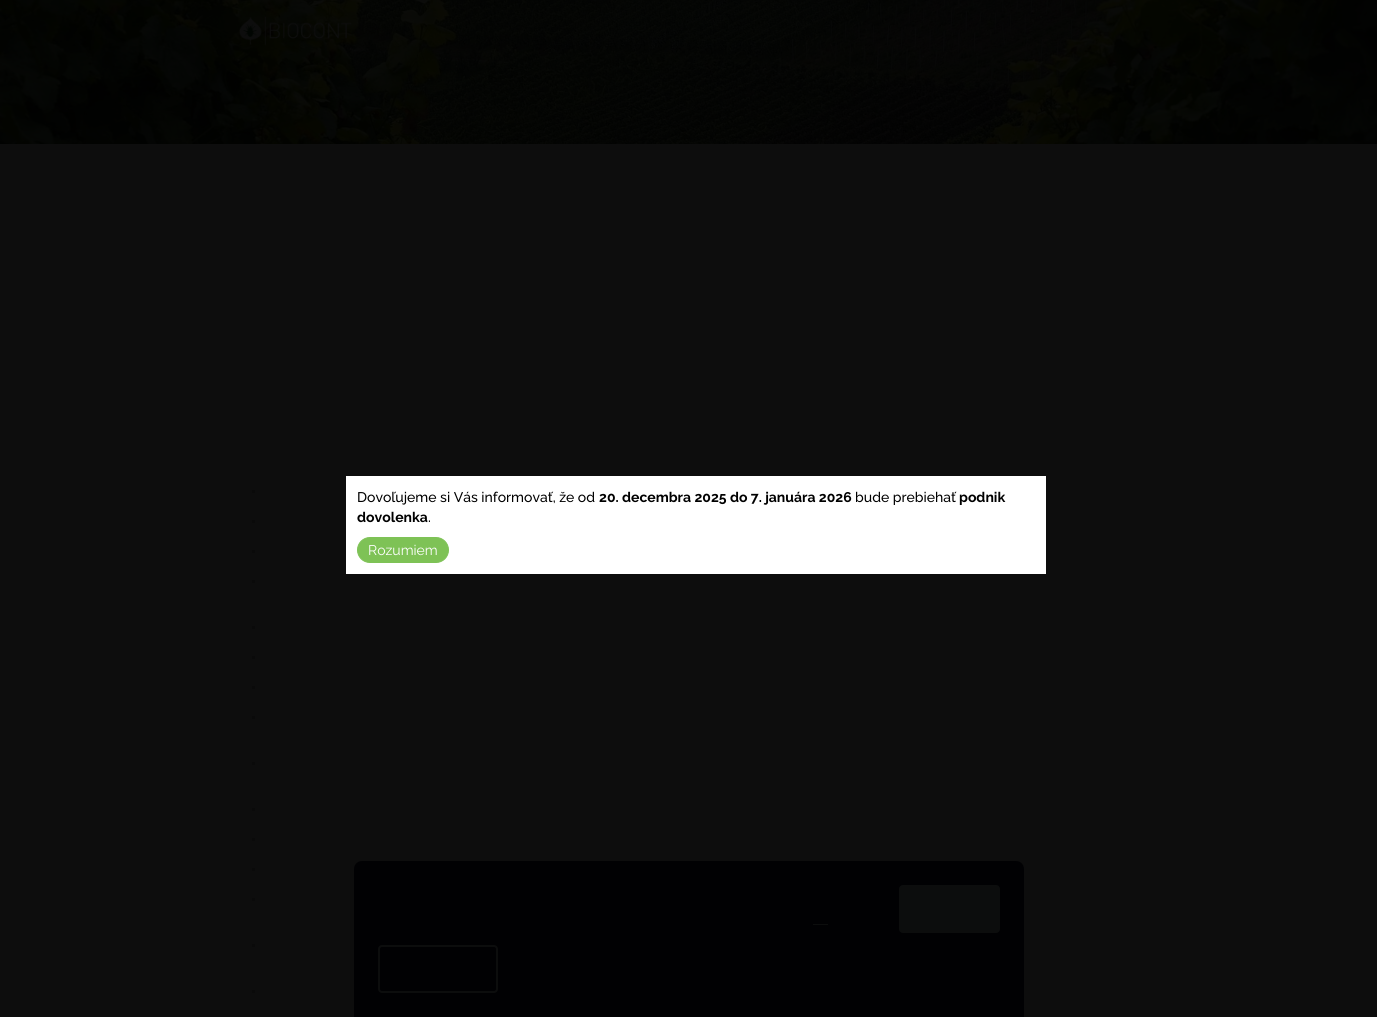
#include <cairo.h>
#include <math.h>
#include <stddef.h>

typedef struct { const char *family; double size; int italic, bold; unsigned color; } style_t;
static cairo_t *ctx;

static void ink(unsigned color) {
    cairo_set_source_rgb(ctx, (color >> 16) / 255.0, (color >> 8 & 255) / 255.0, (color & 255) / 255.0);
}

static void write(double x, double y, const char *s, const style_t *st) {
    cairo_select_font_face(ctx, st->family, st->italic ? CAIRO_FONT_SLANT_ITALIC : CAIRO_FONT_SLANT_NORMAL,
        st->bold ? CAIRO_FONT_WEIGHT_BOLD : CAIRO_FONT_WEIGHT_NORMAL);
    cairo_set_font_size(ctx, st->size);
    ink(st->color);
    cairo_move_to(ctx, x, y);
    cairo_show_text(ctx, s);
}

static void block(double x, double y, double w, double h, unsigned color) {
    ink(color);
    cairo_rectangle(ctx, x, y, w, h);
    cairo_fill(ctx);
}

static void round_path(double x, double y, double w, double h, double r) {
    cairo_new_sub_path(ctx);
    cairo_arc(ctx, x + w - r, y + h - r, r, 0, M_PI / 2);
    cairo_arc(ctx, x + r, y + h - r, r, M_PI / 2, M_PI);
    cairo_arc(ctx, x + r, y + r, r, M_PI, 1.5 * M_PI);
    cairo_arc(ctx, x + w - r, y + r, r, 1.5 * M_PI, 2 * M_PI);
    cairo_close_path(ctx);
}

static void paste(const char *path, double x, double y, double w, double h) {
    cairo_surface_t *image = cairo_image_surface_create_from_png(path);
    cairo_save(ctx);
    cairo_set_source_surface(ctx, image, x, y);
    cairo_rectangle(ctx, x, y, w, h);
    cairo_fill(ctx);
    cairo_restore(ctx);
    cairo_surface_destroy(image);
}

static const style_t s1 = {"Raleway Medium", 14, 0, 0, 0x000000};
static const style_t s2 = {"Raleway", 14, 0, 1, 0x000000};
static const style_t s3 = {"Raleway", 14, 0, 0, 0xffffff};

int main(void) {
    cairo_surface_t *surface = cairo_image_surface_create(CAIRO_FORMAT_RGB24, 1392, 1017);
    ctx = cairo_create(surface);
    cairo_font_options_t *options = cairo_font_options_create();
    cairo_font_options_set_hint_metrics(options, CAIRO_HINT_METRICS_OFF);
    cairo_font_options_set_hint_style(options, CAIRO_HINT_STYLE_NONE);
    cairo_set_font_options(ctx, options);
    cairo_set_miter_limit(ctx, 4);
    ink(0xffffff);
    cairo_paint(ctx);
    block(0, 144, 1377, 873, 0x0d0d0d);
    paste("pic1.png", 0, 0, 1377, 144);
    paste("pic2.png", 239, 16, 113, 30);
    block(252, 490, 3, 3, 0x0a0a0a);
    block(252, 520, 3, 3, 0x0a0a0a);
    block(252, 550, 3, 3, 0x0a0a0a);
    block(252, 580, 3, 3, 0x0a0a0a);
    block(252, 626, 3, 3, 0x0a0a0a);
    block(252, 656, 3, 3, 0x0a0a0a);
    block(252, 686, 3, 3, 0x0a0a0a);
    block(252, 716, 3, 3, 0x0a0a0a);
    block(252, 762, 3, 3, 0x0a0a0a);
    block(252, 808, 3, 3, 0x0a0a0a);
    block(252, 838, 3, 3, 0x0a0a0a);
    block(252, 868, 3, 3, 0x0a0a0a);
    block(252, 898, 3, 3, 0x0a0a0a);
    block(252, 944, 3, 3, 0x0a0a0a);
    block(252, 990, 3, 3, 0x0a0a0a);
    block(346, 476, 700, 98, 0xffffff);
    write(357, 502, "Dovoľujeme si Vás informovať, že od", &s1);
    write(599, 502, "20. decembra 2025 do 7. januára 2026", &s2);
    write(855, 502, "bude prebiehať", &s1);
    write(959, 502, "podnik", &s2);
    write(357, 522, "dovolenka", &s2);
    write(428, 522, ".", &s1);
    ink(0x7ec256);
    round_path(357.5, 537.5, 91, 25, 12.5);
    cairo_fill_preserve(ctx);
    cairo_set_line_width(ctx, 1);
    cairo_stroke(ctx);
    write(368, 555, "Rozumiem", &s3);
    ink(0x010103);
    cairo_new_path(ctx);
    cairo_move_to(ctx, 362, 861);
    cairo_line_to(ctx, 1016, 861);
    cairo_curve_to(ctx, 1020.5, 861, 1024, 864.5, 1024, 869);
    cairo_line_to(ctx, 1024, 1017);
    cairo_line_to(ctx, 354, 1017);
    cairo_line_to(ctx, 354, 869);
    cairo_curve_to(ctx, 354, 864.5, 357.5, 861, 362, 861);
    cairo_close_path(ctx);
    cairo_fill(ctx);
    ink(0x0c0d0d);
    round_path(899, 885, 101, 48, 4);
    cairo_fill(ctx);
    block(813, 924, 15, 1, 0x0c0d0d);
    round_path(379, 946, 118, 46, 3);
    cairo_set_line_width(ctx, 2);
    cairo_stroke(ctx);
    cairo_surface_write_to_png(surface, "screenshot.png");
    cairo_font_options_destroy(options);
    cairo_destroy(ctx);
    cairo_surface_destroy(surface);
    return 0;
}
